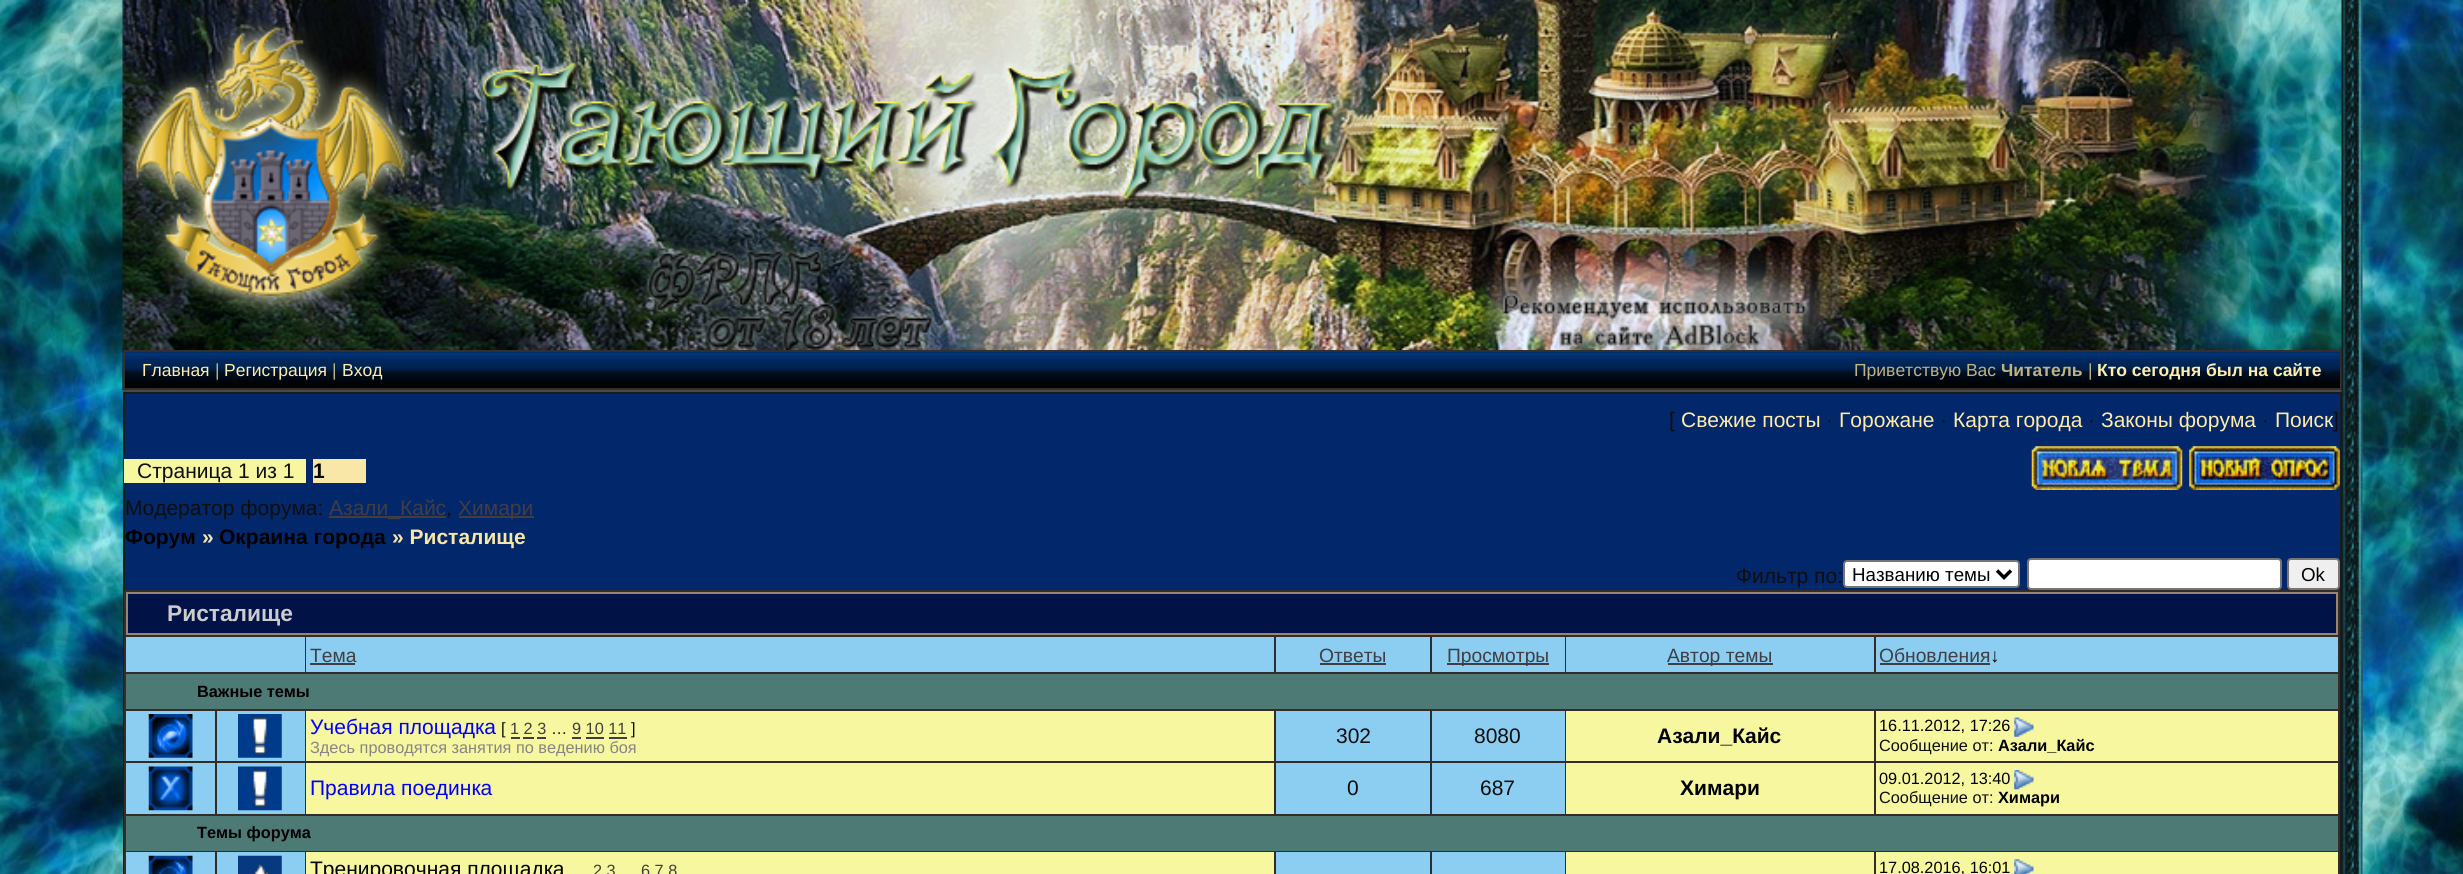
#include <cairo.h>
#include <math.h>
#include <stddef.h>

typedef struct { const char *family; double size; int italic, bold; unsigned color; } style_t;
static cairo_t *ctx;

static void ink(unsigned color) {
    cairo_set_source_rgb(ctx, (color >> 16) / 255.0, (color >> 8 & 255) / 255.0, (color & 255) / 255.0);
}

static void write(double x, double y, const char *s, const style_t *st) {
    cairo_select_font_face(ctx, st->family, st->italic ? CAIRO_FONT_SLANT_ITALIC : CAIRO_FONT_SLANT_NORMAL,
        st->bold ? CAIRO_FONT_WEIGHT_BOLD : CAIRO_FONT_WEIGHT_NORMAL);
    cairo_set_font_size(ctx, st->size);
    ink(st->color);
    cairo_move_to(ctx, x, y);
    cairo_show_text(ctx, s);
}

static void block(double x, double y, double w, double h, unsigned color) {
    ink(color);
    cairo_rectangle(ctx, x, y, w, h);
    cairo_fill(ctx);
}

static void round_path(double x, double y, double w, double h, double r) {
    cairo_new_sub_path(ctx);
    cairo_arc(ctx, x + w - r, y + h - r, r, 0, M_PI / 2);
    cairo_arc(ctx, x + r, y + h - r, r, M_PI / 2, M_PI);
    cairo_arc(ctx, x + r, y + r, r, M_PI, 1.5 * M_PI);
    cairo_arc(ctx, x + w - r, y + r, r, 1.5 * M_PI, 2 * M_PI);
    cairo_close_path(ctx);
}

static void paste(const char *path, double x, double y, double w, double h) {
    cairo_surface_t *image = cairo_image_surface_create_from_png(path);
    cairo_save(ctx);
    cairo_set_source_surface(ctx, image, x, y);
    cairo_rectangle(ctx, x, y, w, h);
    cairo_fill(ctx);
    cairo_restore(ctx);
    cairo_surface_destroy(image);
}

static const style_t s1 = {"Liberation Sans", 17.5, 0, 0, 0xffecab};
static const style_t s2 = {"Liberation Sans", 17.5, 0, 0, 0xc0b281};
static const style_t s3 = {"Liberation Sans", 17.5, 0, 1, 0xc0b281};
static const style_t s4 = {"Liberation Sans", 17.5, 0, 1, 0xffecab};
static const style_t s5 = {"Liberation Sans", 21, 0, 0, 0x0e0e0e};
static const style_t s6 = {"Liberation Sans", 21, 0, 0, 0xffecab};
static const style_t s7 = {"Liberation Sans", 21, 0, 1, 0x000000};
static const style_t s8 = {"Liberation Sans", 21, 0, 0, 0x423d43};
static const style_t s9 = {"Liberation Sans", 21, 0, 1, 0xf9e7a7};
static const style_t s10 = {"Liberation Sans", 18.75, 0, 0, 0x000000};
static const style_t s11 = {"Liberation Sans", 22.75, 0, 1, 0xcccccc};
static const style_t s12 = {"Liberation Sans", 19.25, 0, 0, 0x423d43};
static const style_t s13 = {"Liberation Sans", 19.25, 0, 0, 0x0e0e0e};
static const style_t s14 = {"Liberation Sans", 16.3, 0, 1, 0x000000};
static const style_t s15 = {"Liberation Sans", 21, 0, 0, 0x0000ff};
static const style_t s16 = {"Liberation Sans", 16.3, 0, 0, 0x0e0e0e};
static const style_t s17 = {"Liberation Sans", 16.3, 0, 0, 0x423d43};
static const style_t s18 = {"Liberation Sans", 16.3, 0, 0, 0x858585};
static const style_t s19 = {"Liberation Sans", 16.3, 0, 0, 0x000000};
static const style_t s20 = {"Liberation Sans", 21, 0, 0, 0x000000};

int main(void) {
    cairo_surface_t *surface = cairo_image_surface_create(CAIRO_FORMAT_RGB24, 2463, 874);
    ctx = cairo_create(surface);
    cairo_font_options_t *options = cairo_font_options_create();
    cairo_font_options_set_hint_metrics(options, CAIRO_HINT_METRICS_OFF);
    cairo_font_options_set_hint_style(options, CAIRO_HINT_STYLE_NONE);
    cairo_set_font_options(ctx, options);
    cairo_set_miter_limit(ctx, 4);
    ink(0xffffff);
    cairo_paint(ctx);
    paste("pic1.png", 0, 0, 2463, 874);
    paste("pic2.png", 122, 0, 2127, 350);
    paste("pic3.png", 122, 350, 2218, 41);
    cairo_rectangle(ctx, 124, 351, 2217, 38);
    ink(0x352e2c);
    cairo_stroke(ctx);
    write(142, 376, "Главная", &s1);
    write(215, 376, "|", &s2);
    write(224, 376, "Регистрация", &s1);
    write(332, 376, "|", &s2);
    write(342, 376, "Вход", &s1);
    write(1854, 376, "Приветствую Вас", &s2);
    write(2001, 376, "Читатель", &s3);
    write(2088, 376, "|", &s2);
    write(2097, 376, "Кто сегодня был на сайте", &s4);
    block(123, 390, 2219, 2, 0x494949);
    block(125, 394, 2215, 196, 0x02276a);
    cairo_rectangle(ctx, 124, 393, 2217, 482);
    ink(0x1a1a1a);
    cairo_stroke(ctx);
    write(1669, 427, "[", &s5);
    write(1681, 427, "Свежие посты", &s6);
    write(1826, 427, "·", &s5);
    write(1839, 427, "Горожане", &s6);
    write(1940, 427, "·", &s5);
    write(1953, 427, "Карта города", &s6);
    write(2088, 427, "·", &s5);
    write(2101, 427, "Законы форума", &s6);
    write(2262, 427, "·", &s5);
    write(2275, 427, "Поиск", &s6);
    write(2333, 427, "]", &s5);
    block(124, 455, 1, 32, 0x02276a);
    block(124, 459, 182, 24, 0xf6f79f);
    write(137, 478, "Страница 1 из 1", &s5);
    block(313, 459, 53, 24, 0xf9e7a7);
    write(313, 478, "1", &s7);
    paste("pic4.png", 2031, 446, 152, 44);
    paste("pic5.png", 2189, 446, 151, 44);
    write(125, 515, "Модератор форума:", &s5);
    block(329, 516, 117, 2, 0x423d43);
    write(329, 515, "Азали_Кайс", &s8);
    write(446, 515, ",", &s5);
    block(459, 516, 75, 2, 0x423d43);
    write(458, 515, "Химари", &s8);
    write(125, 544, "Форум", &s7);
    write(202, 544, "»", &s9);
    write(219, 544, "Окраина города", &s7);
    write(392, 544, "» Ристалище", &s9);
    write(1736, 583, "Фильтр по:", &s5);
    ink(0xffffff);
    round_path(1844, 561, 175, 26, 3);
    cairo_fill_preserve(ctx);
    ink(0x767676);
    cairo_stroke(ctx);
    cairo_new_path(ctx);
    cairo_move_to(ctx, 1997, 570.5);
    cairo_line_to(ctx, 2004, 577.5);
    cairo_line_to(ctx, 2011, 570.5);
    ink(0x000000);
    cairo_set_line_width(ctx, 3.5);
    cairo_stroke(ctx);
    write(1852, 581, "Названию темы", &s10);
    ink(0xffffff);
    round_path(2028, 559, 253, 30, 3);
    cairo_fill_preserve(ctx);
    ink(0x767676);
    cairo_set_line_width(ctx, 2);
    cairo_stroke(ctx);
    ink(0xefefef);
    round_path(2288, 559, 51, 30, 3);
    cairo_fill_preserve(ctx);
    ink(0x767676);
    cairo_stroke(ctx);
    write(2301, 581, "Ok", &s10);
    block(124, 590, 2216, 284, 0x342c28);
    ink(0x011247);
    cairo_rectangle(ctx, 127, 593, 2210, 41);
    cairo_fill_preserve(ctx);
    ink(0x988675);
    cairo_stroke(ctx);
    write(167, 621, "Ристалище", &s11);
    block(126, 637, 179, 35, 0x8bcef1);
    block(306, 637, 968, 35, 0x8bcef1);
    write(310, 662, "Тема", &s12);
    block(310, 663, 45, 2, 0x423d43);
    block(1276, 637, 154, 35, 0x8bcef1);
    write(1319, 662, "Ответы", &s12);
    block(1320, 663, 66, 2, 0x423d43);
    block(1432, 637, 133, 35, 0x8bcef1);
    block(1447, 663, 102, 2, 0x423d43);
    write(1447, 662, "Просмотры", &s12);
    block(1566, 637, 308, 35, 0x8bcef1);
    block(1668, 663, 105, 2, 0x423d43);
    write(1667, 662, "Автор темы", &s12);
    block(1876, 637, 462, 35, 0x8bcef1);
    write(1879, 662, "Обновления", &s12);
    block(1880, 663, 110, 2, 0x423d43);
    write(1990, 662, "↓", &s13);
    block(126, 674, 2212, 35, 0x4e7a75);
    write(197, 697, "Важные темы", &s14);
    block(126, 711, 89, 50, 0x8bcef1);
    paste("pic6.png", 148, 714, 45, 44);
    block(217, 711, 88, 50, 0x8bcef1);
    paste("pic7.png", 238, 714, 44, 44);
    block(306, 711, 968, 50, 0xf6f79f);
    write(310, 734, "Учебная площадка", &s15);
    write(501, 734, "[", &s16);
    write(510, 734, "1 2 3", &s17);
    block(511, 737, 9, 2, 0x423d43);
    block(523, 737, 11, 2, 0x423d43);
    write(551, 734, "…", &s16);
    block(537, 737, 9, 2, 0x423d43);
    block(572, 737, 9, 2, 0x423d43);
    write(572, 734, "9 10 11", &s17);
    block(586, 737, 18, 2, 0x423d43);
    block(609, 737, 18, 2, 0x423d43);
    write(631, 734, "]", &s16);
    write(310, 753, "Здесь проводятся занятия по ведению боя", &s18);
    block(1276, 711, 154, 50, 0x8bcef1);
    write(1336, 743, "302", &s5);
    block(1432, 711, 133, 50, 0x8bcef1);
    write(1474, 743, "8080", &s5);
    block(1566, 711, 308, 50, 0xf6f79f);
    write(1657, 743, "Азали_Кайс", &s7);
    block(1876, 711, 462, 50, 0xf6f79f);
    write(1879, 731, "16.11.2012, 17:26", &s19);
    paste("pic8.png", 2014, 717, 20, 20);
    write(1879, 751, "Сообщение от:", &s16);
    write(1998, 751, "Азали_Кайс", &s14);
    block(126, 763, 89, 51, 0x8bcef1);
    paste("pic9.png", 148, 766, 45, 45);
    block(217, 763, 88, 51, 0x8bcef1);
    paste("pic10.png", 238, 766, 44, 45);
    block(306, 763, 968, 51, 0xf6f79f);
    write(310, 795, "Правила поединка", &s15);
    block(1276, 763, 154, 51, 0x8bcef1);
    write(1347, 795, "0", &s5);
    block(1432, 763, 133, 51, 0x8bcef1);
    write(1480, 795, "687", &s5);
    block(1566, 763, 308, 51, 0xf6f79f);
    write(1680, 795, "Химари", &s7);
    block(1876, 763, 462, 51, 0xf6f79f);
    write(1879, 784, "09.01.2012, 13:40", &s19);
    paste("pic11.png", 2014, 770, 20, 20);
    write(1879, 803, "Сообщение от:", &s16);
    write(1998, 803, "Химари", &s14);
    block(126, 816, 2212, 35, 0x4e7a75);
    write(197, 838, "Темы форума", &s14);
    block(126, 852, 89, 22, 0x8bcef1);
    paste("pic12.png", 148, 855, 45, 19);
    block(217, 852, 88, 22, 0x8bcef1);
    paste("pic13.png", 238, 855, 44, 19);
    block(306, 852, 968, 22, 0xf6f79f);
    write(310, 876, "Тренировочная площадка", &s20);
    write(593, 876, "2 3", &s17);
    write(641, 876, "6 7 8", &s17);
    block(1276, 852, 154, 22, 0x8bcef1);
    block(1432, 852, 133, 22, 0x8bcef1);
    block(1566, 852, 308, 22, 0xf6f79f);
    block(1876, 852, 462, 22, 0xf6f79f);
    write(1879, 873, "17.08.2016, 16:01", &s19);
    paste("pic14.png", 2014, 859, 20, 15);
    paste("pic15.png", 2341, 0, 22, 874);
    paste("pic16.png", 2341, 609, 22, 193);
    cairo_surface_write_to_png(surface, "screenshot.png");
    cairo_font_options_destroy(options);
    cairo_destroy(ctx);
    cairo_surface_destroy(surface);
    return 0;
}
